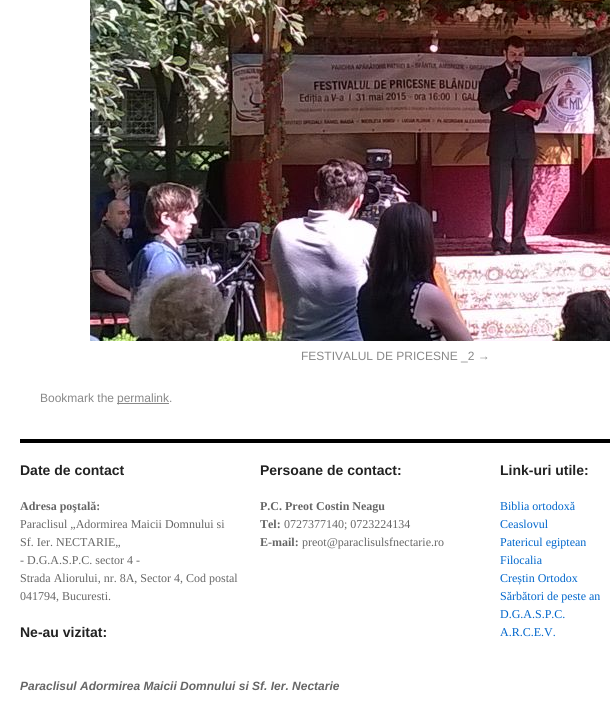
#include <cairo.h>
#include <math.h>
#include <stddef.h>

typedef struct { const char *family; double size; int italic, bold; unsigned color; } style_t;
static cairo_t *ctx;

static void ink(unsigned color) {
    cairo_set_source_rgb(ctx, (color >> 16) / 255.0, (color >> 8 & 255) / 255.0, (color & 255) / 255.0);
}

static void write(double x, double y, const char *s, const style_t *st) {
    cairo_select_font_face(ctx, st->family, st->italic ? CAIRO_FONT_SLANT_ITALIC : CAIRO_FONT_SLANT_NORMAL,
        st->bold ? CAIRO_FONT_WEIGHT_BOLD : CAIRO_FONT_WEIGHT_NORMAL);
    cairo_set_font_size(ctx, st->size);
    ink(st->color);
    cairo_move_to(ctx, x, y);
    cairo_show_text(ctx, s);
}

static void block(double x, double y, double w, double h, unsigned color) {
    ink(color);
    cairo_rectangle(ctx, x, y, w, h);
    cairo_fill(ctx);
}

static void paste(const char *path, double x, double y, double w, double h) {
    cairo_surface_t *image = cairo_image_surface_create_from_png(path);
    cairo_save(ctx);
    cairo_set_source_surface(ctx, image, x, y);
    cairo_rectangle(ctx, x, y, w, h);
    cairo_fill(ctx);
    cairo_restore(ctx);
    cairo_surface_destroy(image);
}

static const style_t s1 = {"Liberation Sans", 12, 0, 0, 0x888888};
static const style_t s2 = {"Liberation Sans", 14, 0, 1, 0x222222};
static const style_t s3 = {"Liberation Serif", 12, 0, 1, 0x666666};
static const style_t s4 = {"Liberation Serif", 12, 0, 0, 0x666666};
static const style_t s5 = {"Liberation Serif", 12, 0, 0, 0x0066cc};
static const style_t s6 = {"Liberation Sans", 12, 1, 1, 0x666666};

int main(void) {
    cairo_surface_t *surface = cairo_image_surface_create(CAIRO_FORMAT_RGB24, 610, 708);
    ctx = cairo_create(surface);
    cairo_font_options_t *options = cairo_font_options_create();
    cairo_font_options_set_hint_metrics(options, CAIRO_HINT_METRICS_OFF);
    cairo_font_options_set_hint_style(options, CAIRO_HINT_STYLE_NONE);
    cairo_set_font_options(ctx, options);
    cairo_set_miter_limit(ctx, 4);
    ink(0xffffff);
    cairo_paint(ctx);
    paste("pic1.png", 90, 0, 520, 341);
    write(301, 360, "FESTIVALUL DE PRICESNE _2 →", &s1);
    write(40, 402, "Bookmark the", &s1);
    block(117, 403, 52, 1, 0x888888);
    write(117, 402, "permalink.", &s1);
    block(20, 439, 590, 4, 0x000000);
    write(20, 475, "Date de contact", &s2);
    write(20, 510, "Adresa poştală:", &s3);
    write(20, 528, "Paraclisul „Adormirea Maicii Domnului si", &s4);
    write(20, 546, "Sf. Ier. NECTARIE„", &s4);
    write(20, 564, "- D.G.A.S.P.C. sector 4 -", &s4);
    write(20, 582, "Strada Aliorului, nr. 8A, Sector 4, Cod postal", &s4);
    write(20, 600, "041794, Bucuresti.", &s4);
    write(20, 637, "Ne-au vizitat:", &s2);
    write(260, 475, "Persoane de contact:", &s2);
    write(260, 510, "P.C. Preot Costin Neagu", &s3);
    write(260, 528, "Tel:", &s3);
    write(284, 528, "0727377140; 0723224134", &s4);
    write(260, 546, "E-mail:", &s3);
    write(302, 546, "preot@paraclisulsfnectarie.ro", &s4);
    write(500, 475, "Link-uri utile:", &s2);
    write(500, 510, "Biblia ortodoxă", &s5);
    write(500, 528, "Ceaslovul", &s5);
    write(500, 546, "Patericul egiptean", &s5);
    write(500, 564, "Filocalia", &s5);
    write(500, 582, "Creștin Ortodox", &s5);
    write(500, 600, "Sărbători de peste an", &s5);
    write(500, 618, "D.G.A.S.P.C.", &s5);
    write(500, 636, "A.R.C.E.V.", &s5);
    write(20, 690, "Paraclisul Adormirea Maicii Domnului si Sf. Ier. Nectarie", &s6);
    cairo_surface_write_to_png(surface, "screenshot.png");
    cairo_font_options_destroy(options);
    cairo_destroy(ctx);
    cairo_surface_destroy(surface);
    return 0;
}
